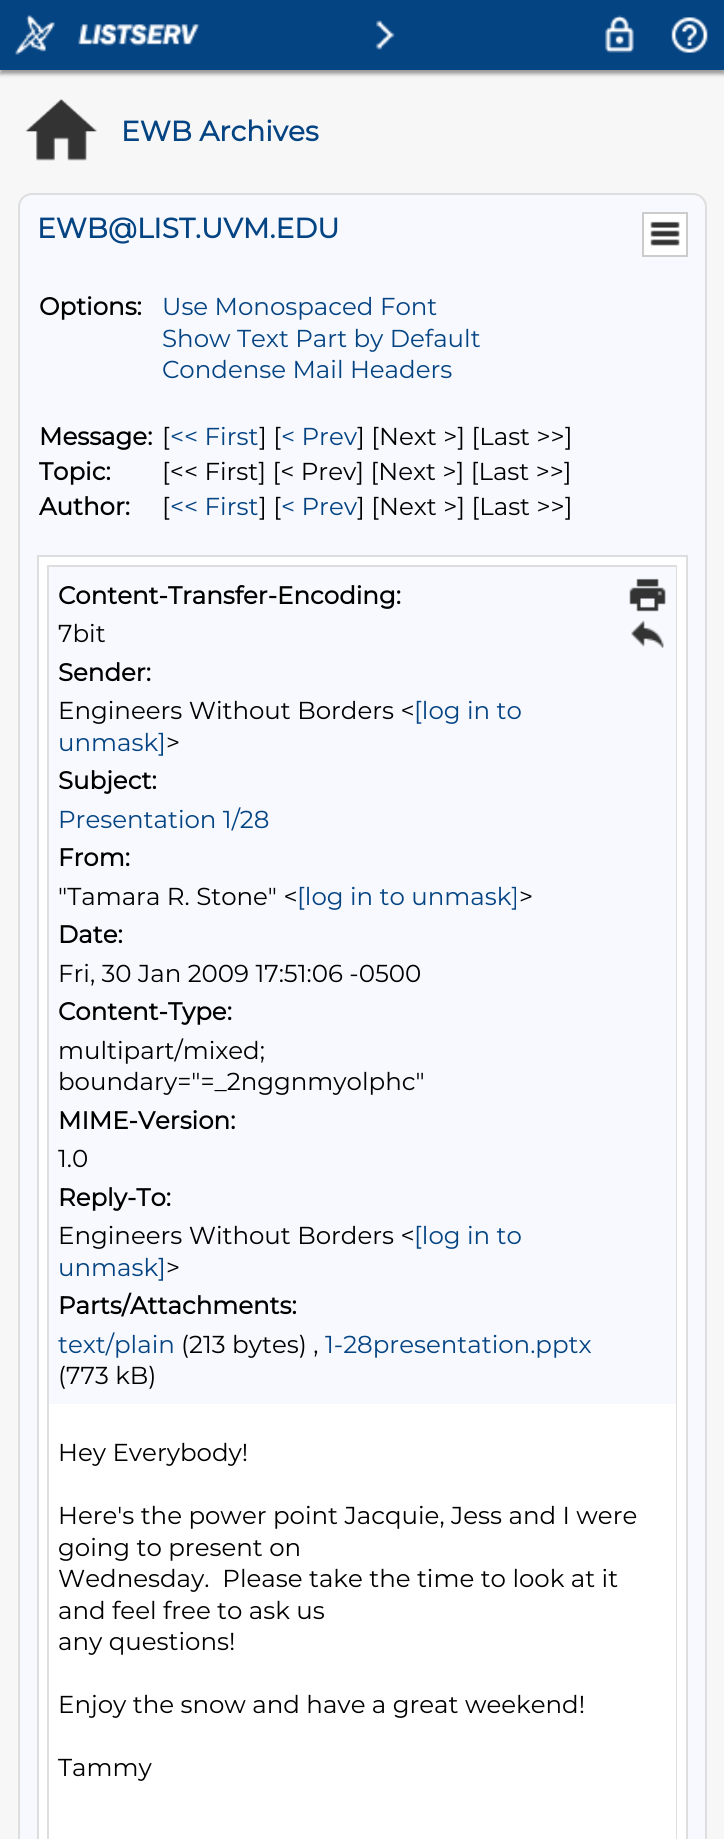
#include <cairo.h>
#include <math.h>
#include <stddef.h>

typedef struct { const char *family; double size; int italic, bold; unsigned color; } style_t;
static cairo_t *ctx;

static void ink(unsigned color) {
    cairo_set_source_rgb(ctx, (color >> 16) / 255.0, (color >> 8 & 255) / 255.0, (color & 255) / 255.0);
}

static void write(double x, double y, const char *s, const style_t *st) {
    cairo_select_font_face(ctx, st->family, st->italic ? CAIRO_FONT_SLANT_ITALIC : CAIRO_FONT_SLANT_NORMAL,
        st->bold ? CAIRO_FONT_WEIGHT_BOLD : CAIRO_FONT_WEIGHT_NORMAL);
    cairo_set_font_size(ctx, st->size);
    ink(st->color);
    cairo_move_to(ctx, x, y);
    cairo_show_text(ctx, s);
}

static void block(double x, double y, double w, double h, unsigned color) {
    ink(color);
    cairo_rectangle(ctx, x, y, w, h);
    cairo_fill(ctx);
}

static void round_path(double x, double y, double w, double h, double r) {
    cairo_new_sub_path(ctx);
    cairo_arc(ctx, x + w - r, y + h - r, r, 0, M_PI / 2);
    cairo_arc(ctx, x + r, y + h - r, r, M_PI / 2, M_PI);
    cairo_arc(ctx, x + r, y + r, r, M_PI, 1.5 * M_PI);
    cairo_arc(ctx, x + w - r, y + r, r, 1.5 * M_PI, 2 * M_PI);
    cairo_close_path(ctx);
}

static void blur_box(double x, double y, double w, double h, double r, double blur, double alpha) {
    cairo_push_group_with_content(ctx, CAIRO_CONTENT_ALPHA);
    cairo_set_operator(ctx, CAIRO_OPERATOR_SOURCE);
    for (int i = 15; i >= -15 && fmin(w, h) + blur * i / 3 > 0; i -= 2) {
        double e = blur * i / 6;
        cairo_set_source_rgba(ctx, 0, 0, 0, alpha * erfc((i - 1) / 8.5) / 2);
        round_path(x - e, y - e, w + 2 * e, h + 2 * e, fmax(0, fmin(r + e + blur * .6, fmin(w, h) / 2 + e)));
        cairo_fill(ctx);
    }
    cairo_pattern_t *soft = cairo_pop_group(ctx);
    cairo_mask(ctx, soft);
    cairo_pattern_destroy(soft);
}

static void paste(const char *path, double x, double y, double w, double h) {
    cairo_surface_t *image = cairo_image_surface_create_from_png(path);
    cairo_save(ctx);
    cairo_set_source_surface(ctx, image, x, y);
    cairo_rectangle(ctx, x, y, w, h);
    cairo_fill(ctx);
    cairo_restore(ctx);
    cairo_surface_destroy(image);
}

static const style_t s1 = {"Montserrat", 28, 0, 1, 0x054483};
static const style_t s2 = {"Montserrat", 24.5, 0, 1, 0x000000};
static const style_t s3 = {"Montserrat Thin", 24.5, 0, 0, 0x054483};
static const style_t s4 = {"Montserrat Thin", 24.5, 0, 0, 0x000000};

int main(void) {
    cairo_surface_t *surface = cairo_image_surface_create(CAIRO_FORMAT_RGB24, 724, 1839);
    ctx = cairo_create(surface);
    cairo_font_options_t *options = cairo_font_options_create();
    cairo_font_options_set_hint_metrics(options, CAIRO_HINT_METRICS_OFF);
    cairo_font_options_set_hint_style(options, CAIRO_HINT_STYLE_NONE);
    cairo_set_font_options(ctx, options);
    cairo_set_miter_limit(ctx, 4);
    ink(0xf7f7f7);
    cairo_paint(ctx);
    ink(0x999999);
    blur_box(0, 4, 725, 70, 0, 2, 1);
    block(0, 0, 724, 70, 0x054483);
    paste("pic1.png", 15, 15, 40, 40);
    paste("pic2.png", 78, 24, 122, 22);
    paste("pic3.png", 375, 20, 20, 30);
    paste("pic4.png", 605, 15, 29, 38);
    paste("pic5.png", 671, 17, 37, 36);
    paste("pic6.png", 25, 99, 72, 62);
    write(121, 141, "EWB Archives", &s1);
    ink(0xf7f9fe);
    round_path(19, 194, 687, 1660, 13);
    cairo_fill_preserve(ctx);
    ink(0xdedede);
    cairo_stroke(ctx);
    write(37, 238, "EWB@LIST.UVM.EDU", &s1);
    ink(0xffffff);
    cairo_rectangle(ctx, 643, 213, 44, 43);
    cairo_fill_preserve(ctx);
    ink(0xcccccc);
    cairo_stroke(ctx);
    paste("pic7.png", 650, 221, 30, 25);
    write(39, 315, "Options:", &s2);
    write(162, 315, "Use Monospaced Font", &s3);
    write(162, 347, "Show Text Part by Default", &s3);
    write(162, 378, "Condense Mail Headers", &s3);
    write(39, 445, "Message:", &s2);
    write(162, 445, "[", &s4);
    write(170, 445, "<< First", &s3);
    write(259, 445, "] [", &s4);
    write(281, 445, "< Prev", &s3);
    write(357, 445, "] [Next >] [Last >>]", &s4);
    write(39, 480, "Topic:", &s2);
    write(162, 480, "[<< First] [< Prev] [Next >] [Last >>]", &s4);
    write(39, 515, "Author:", &s2);
    write(162, 515, "[", &s4);
    write(170, 515, "<< First", &s3);
    write(259, 515, "] [", &s4);
    write(281, 515, "< Prev", &s3);
    write(357, 515, "] [Next >] [Last >>]", &s4);
    cairo_rectangle(ctx, 38, 556, 649, 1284);
    ink(0xdedede);
    cairo_stroke(ctx);
    block(39, 557, 647, 1282, 0xffffff);
    cairo_rectangle(ctx, 48, 566, 628, 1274);
    ink(0xdedede);
    cairo_stroke(ctx);
    block(49, 567, 627, 837, 0xf7f9fe);
    write(58, 604, "Content-Transfer-Encoding:", &s2);
    write(58, 642, "7bit", &s4);
    write(58, 681, "Sender:", &s2);
    write(58, 719, "Engineers Without Borders <", &s4);
    write(414, 719, "[log in to", &s3);
    write(58, 751, "unmask]", &s3);
    write(166, 751, ">", &s4);
    write(58, 789, "Subject:", &s2);
    write(58, 828, "Presentation 1/28", &s3);
    write(58, 866, "From:", &s2);
    write(58, 905, "\"Tamara R. Stone\" <", &s4);
    write(297, 905, "[log in to unmask]", &s3);
    write(519, 905, ">", &s4);
    write(58, 943, "Date:", &s2);
    write(58, 982, "Fri, 30 Jan 2009 17:51:06 -0500", &s4);
    write(58, 1020, "Content-Type:", &s2);
    write(58, 1059, "multipart/mixed;", &s4);
    write(58, 1090, "boundary=\"=_2nggnmyolphc\"", &s4);
    write(58, 1129, "MIME-Version:", &s2);
    write(58, 1167, "1.0", &s4);
    write(58, 1206, "Reply-To:", &s2);
    write(58, 1244, "Engineers Without Borders <", &s4);
    write(414, 1244, "[log in to", &s3);
    write(58, 1276, "unmask]", &s3);
    write(166, 1276, ">", &s4);
    write(58, 1314, "Parts/Attachments:", &s2);
    write(58, 1353, "text/plain", &s3);
    write(181, 1353, "(213 bytes) ,", &s4);
    write(325, 1353, "1-28presentation.pptx", &s3);
    write(58, 1384, "(773 kB)", &s4);
    paste("pic8.png", 629, 578, 37, 34);
    paste("pic9.png", 631, 620, 33, 28);
    block(675, 1404, 1, 435, 0xffffff);
    write(58, 1461, "Hey Everybody!", &s4);
    write(58, 1524, "Here's the power point Jacquie, Jess and I were", &s4);
    write(58, 1556, "going to present on", &s4);
    write(58, 1587, "Wednesday.  Please take the time to look at it", &s4);
    write(58, 1619, "and feel free to ask us", &s4);
    write(58, 1650, "any questions!", &s4);
    write(58, 1713, "Enjoy the snow and have a great weekend!", &s4);
    write(58, 1776, "Tammy", &s4);
    cairo_surface_write_to_png(surface, "screenshot.png");
    cairo_font_options_destroy(options);
    cairo_destroy(ctx);
    cairo_surface_destroy(surface);
    return 0;
}
